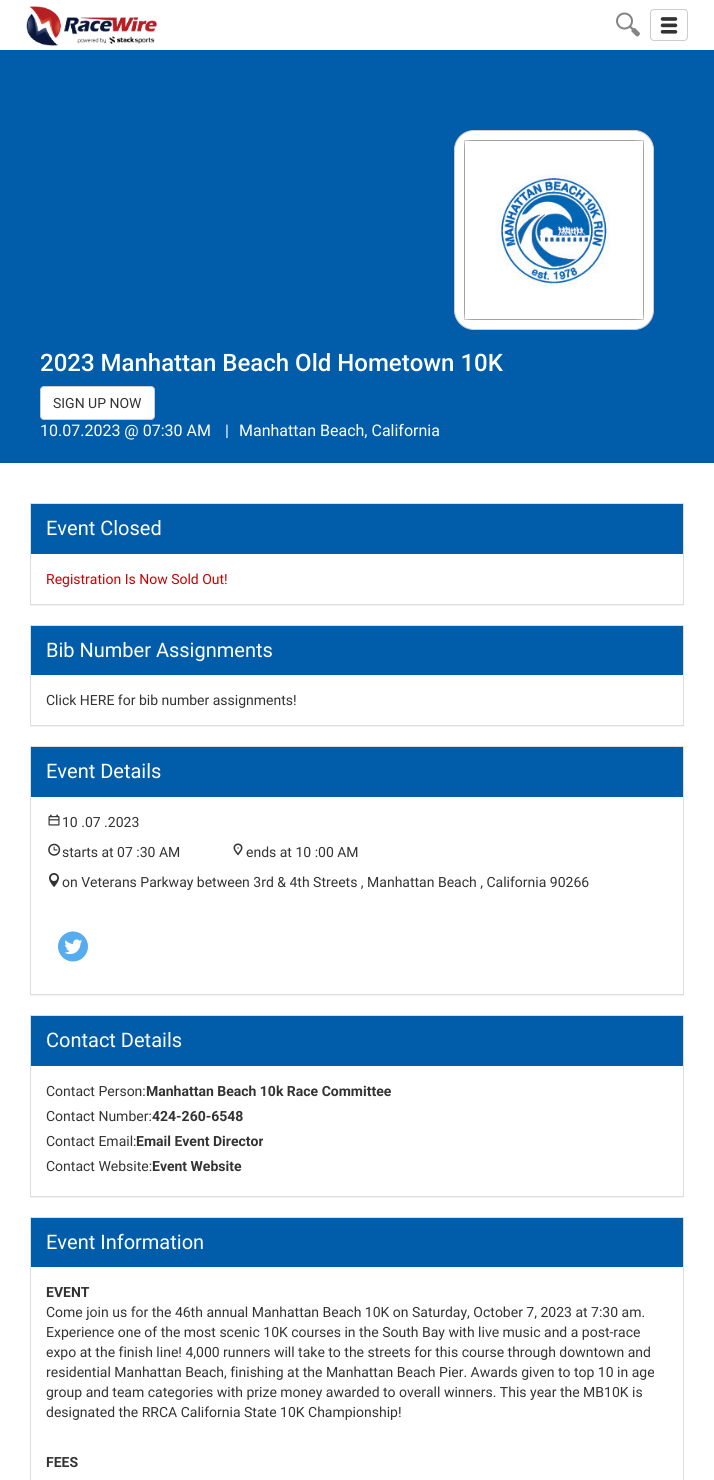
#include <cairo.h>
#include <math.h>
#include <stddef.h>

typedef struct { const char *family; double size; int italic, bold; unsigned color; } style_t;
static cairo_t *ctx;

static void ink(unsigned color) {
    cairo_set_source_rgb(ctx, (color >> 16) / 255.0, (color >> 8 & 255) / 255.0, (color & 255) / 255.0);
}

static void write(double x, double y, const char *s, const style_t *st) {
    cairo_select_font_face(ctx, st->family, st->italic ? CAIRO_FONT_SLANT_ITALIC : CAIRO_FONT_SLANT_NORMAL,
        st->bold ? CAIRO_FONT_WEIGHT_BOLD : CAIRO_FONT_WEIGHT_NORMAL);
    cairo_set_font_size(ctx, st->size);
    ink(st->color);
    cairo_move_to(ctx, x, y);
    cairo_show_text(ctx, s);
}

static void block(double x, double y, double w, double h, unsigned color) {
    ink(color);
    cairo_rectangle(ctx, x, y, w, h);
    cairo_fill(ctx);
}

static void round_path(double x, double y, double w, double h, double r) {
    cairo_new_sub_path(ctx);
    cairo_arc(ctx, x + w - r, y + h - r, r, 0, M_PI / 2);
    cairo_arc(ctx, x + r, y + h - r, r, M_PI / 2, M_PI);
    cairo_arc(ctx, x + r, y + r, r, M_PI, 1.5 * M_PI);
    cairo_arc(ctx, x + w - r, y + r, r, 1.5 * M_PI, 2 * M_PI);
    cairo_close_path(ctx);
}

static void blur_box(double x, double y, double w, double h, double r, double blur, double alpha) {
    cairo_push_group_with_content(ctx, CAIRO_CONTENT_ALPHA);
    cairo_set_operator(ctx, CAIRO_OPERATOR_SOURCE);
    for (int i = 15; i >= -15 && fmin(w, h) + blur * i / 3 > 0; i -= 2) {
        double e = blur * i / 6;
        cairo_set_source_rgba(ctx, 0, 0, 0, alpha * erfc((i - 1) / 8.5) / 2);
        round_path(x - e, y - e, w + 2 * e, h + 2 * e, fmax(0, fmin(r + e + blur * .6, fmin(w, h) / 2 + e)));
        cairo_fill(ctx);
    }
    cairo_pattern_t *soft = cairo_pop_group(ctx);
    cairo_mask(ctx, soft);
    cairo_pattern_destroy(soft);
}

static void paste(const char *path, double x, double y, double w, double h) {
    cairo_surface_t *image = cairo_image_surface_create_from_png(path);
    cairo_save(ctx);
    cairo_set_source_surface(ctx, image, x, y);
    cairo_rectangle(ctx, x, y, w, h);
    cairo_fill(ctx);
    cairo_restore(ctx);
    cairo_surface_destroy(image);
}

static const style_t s1 = {"Roboto Medium", 24, 0, 0, 0xffffff};
static const style_t s2 = {"Roboto", 14, 0, 0, 0x333333};
static const style_t s3 = {"Roboto", 16, 0, 0, 0xffffff};
static const style_t s4 = {"Roboto", 20, 0, 0, 0xffffff};
static const style_t s5 = {"Roboto", 14, 0, 0, 0xcc0000};
static const style_t s6 = {"Roboto", 14, 0, 1, 0x333333};

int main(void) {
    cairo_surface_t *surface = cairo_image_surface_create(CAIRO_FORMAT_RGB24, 714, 1480);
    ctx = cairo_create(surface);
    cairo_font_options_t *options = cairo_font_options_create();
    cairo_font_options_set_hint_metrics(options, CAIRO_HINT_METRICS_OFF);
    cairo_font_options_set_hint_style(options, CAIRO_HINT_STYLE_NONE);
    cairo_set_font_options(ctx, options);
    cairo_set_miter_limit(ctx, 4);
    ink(0x015da9);
    cairo_paint(ctx);
    block(0, 0, 714, 50, 0xffffff);
    paste("pic1.png", 26, 6, 131, 40);
    paste("pic2.png", 616, 12, 24, 25);
    round_path(650.5, 9.5, 37, 31, 3.5);
    ink(0xcccccc);
    cairo_set_line_width(ctx, 1);
    cairo_stroke(ctx);
    paste("pic3.png", 660, 17, 18, 17);
    ink(0xffffff);
    round_path(454.5, 130.5, 199, 199, 19.5);
    cairo_fill_preserve(ctx);
    ink(0xcccccc);
    cairo_stroke(ctx);
    paste("pic4.png", 464, 140, 180, 180);
    write(40, 371, "2023 Manhattan Beach Old Hometown 10K", &s1);
    round_path(40.5, 386.5, 114, 33, 3.5);
    cairo_fill_preserve(ctx);
    ink(0xcccccc);
    cairo_stroke(ctx);
    write(53, 408, "SIGN UP NOW", &s2);
    write(40, 436, "10.07.2023 @ 07:30 AM", &s3);
    write(225, 436, "|", &s3);
    write(239, 436, "Manhattan Beach, California", &s3);
    block(0, 463, 714, 1017, 0xffffff);
    cairo_save(ctx);
    cairo_rectangle(ctx, 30, 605, 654, 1);
    cairo_clip(ctx);
    ink(0x000000);
    blur_box(30, 504, 654, 102, 0, 0.5, 0.05);
    cairo_restore(ctx);
    cairo_rectangle(ctx, 30.5, 503.5, 653, 101);
    ink(0xdddddd);
    cairo_stroke(ctx);
    block(31, 504, 652, 50, 0x015da9);
    write(46, 535, "Event Closed", &s4);
    write(46, 584, "Registration Is Now Sold Out!", &s5);
    cairo_save(ctx);
    cairo_rectangle(ctx, 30, 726, 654, 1);
    cairo_clip(ctx);
    ink(0x000000);
    blur_box(30, 626, 654, 101, 0, 0.5, 0.05);
    cairo_restore(ctx);
    cairo_rectangle(ctx, 30.5, 625.5, 653, 100);
    ink(0xdddddd);
    cairo_stroke(ctx);
    block(31, 626, 652, 49, 0x015da9);
    write(46, 657, "Bib Number Assignments", &s4);
    write(46, 705, "Click HERE for bib number assignments!", &s2);
    cairo_save(ctx);
    cairo_rectangle(ctx, 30, 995, 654, 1);
    cairo_clip(ctx);
    ink(0x000000);
    blur_box(30, 747, 654, 249, 0, 0.5, 0.05);
    cairo_restore(ctx);
    cairo_rectangle(ctx, 30.5, 746.5, 653, 248);
    ink(0xdddddd);
    cairo_stroke(ctx);
    block(31, 747, 652, 50, 0x015da9);
    write(46, 778, "Event Details", &s4);
    paste("pic5.png", 48, 814, 12, 12);
    write(62, 827, "10 .07 .2023", &s2);
    paste("pic6.png", 48, 843, 13, 13);
    write(62, 857, "starts at 07 :30 AM", &s2);
    paste("pic7.png", 233, 843, 10, 13);
    write(246, 857, "ends at 10 :00 AM", &s2);
    paste("pic8.png", 49, 873, 10, 14);
    write(62, 887, "on Veterans Parkway between 3rd & 4th Streets , Manhattan Beach , California 90266", &s2);
    paste("pic9.png", 58, 931, 30, 31);
    cairo_save(ctx);
    cairo_rectangle(ctx, 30, 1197, 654, 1);
    cairo_clip(ctx);
    ink(0x000000);
    blur_box(30, 1016, 654, 182, 0, 0.5, 0.05);
    cairo_restore(ctx);
    cairo_rectangle(ctx, 30.5, 1015.5, 653, 181);
    ink(0xdddddd);
    cairo_stroke(ctx);
    block(31, 1016, 652, 50, 0x015da9);
    write(46, 1047, "Contact Details", &s4);
    write(46, 1096, "Contact Person:", &s2);
    write(146, 1096, "Manhattan Beach 10k Race Committee", &s6);
    write(46, 1121, "Contact Number:", &s2);
    write(152, 1121, "424-260-6548", &s6);
    write(46, 1146, "Contact Email:", &s2);
    write(136, 1146, "Email Event Director", &s6);
    write(46, 1171, "Contact Website:", &s2);
    write(152, 1171, "Event Website", &s6);
    cairo_rectangle(ctx, 30.5, 1217.5, 653, 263);
    ink(0xdddddd);
    cairo_stroke(ctx);
    block(31, 1218, 652, 49, 0x015da9);
    write(46, 1249, "Event Information", &s4);
    write(46, 1297, "EVENT", &s6);
    write(46, 1317, "Come join us for the 46th annual Manhattan Beach 10K on Saturday, October 7, 2023 at 7:30 am.", &s2);
    write(46, 1337, "Experience one of the most scenic 10K courses in the South Bay with live music and a post-race", &s2);
    write(46, 1357, "expo at the finish line! 4,000 runners will take to the streets for this course through downtown and", &s2);
    write(46, 1377, "residential Manhattan Beach, finishing at the Manhattan Beach Pier. Awards given to top 10 in age", &s2);
    write(46, 1397, "group and team categories with prize money awarded to overall winners. This year the MB10K is", &s2);
    write(46, 1417, "designated the RRCA California State 10K Championship!", &s2);
    write(46, 1467, "FEES", &s6);
    cairo_surface_write_to_png(surface, "screenshot.png");
    cairo_font_options_destroy(options);
    cairo_destroy(ctx);
    cairo_surface_destroy(surface);
    return 0;
}
